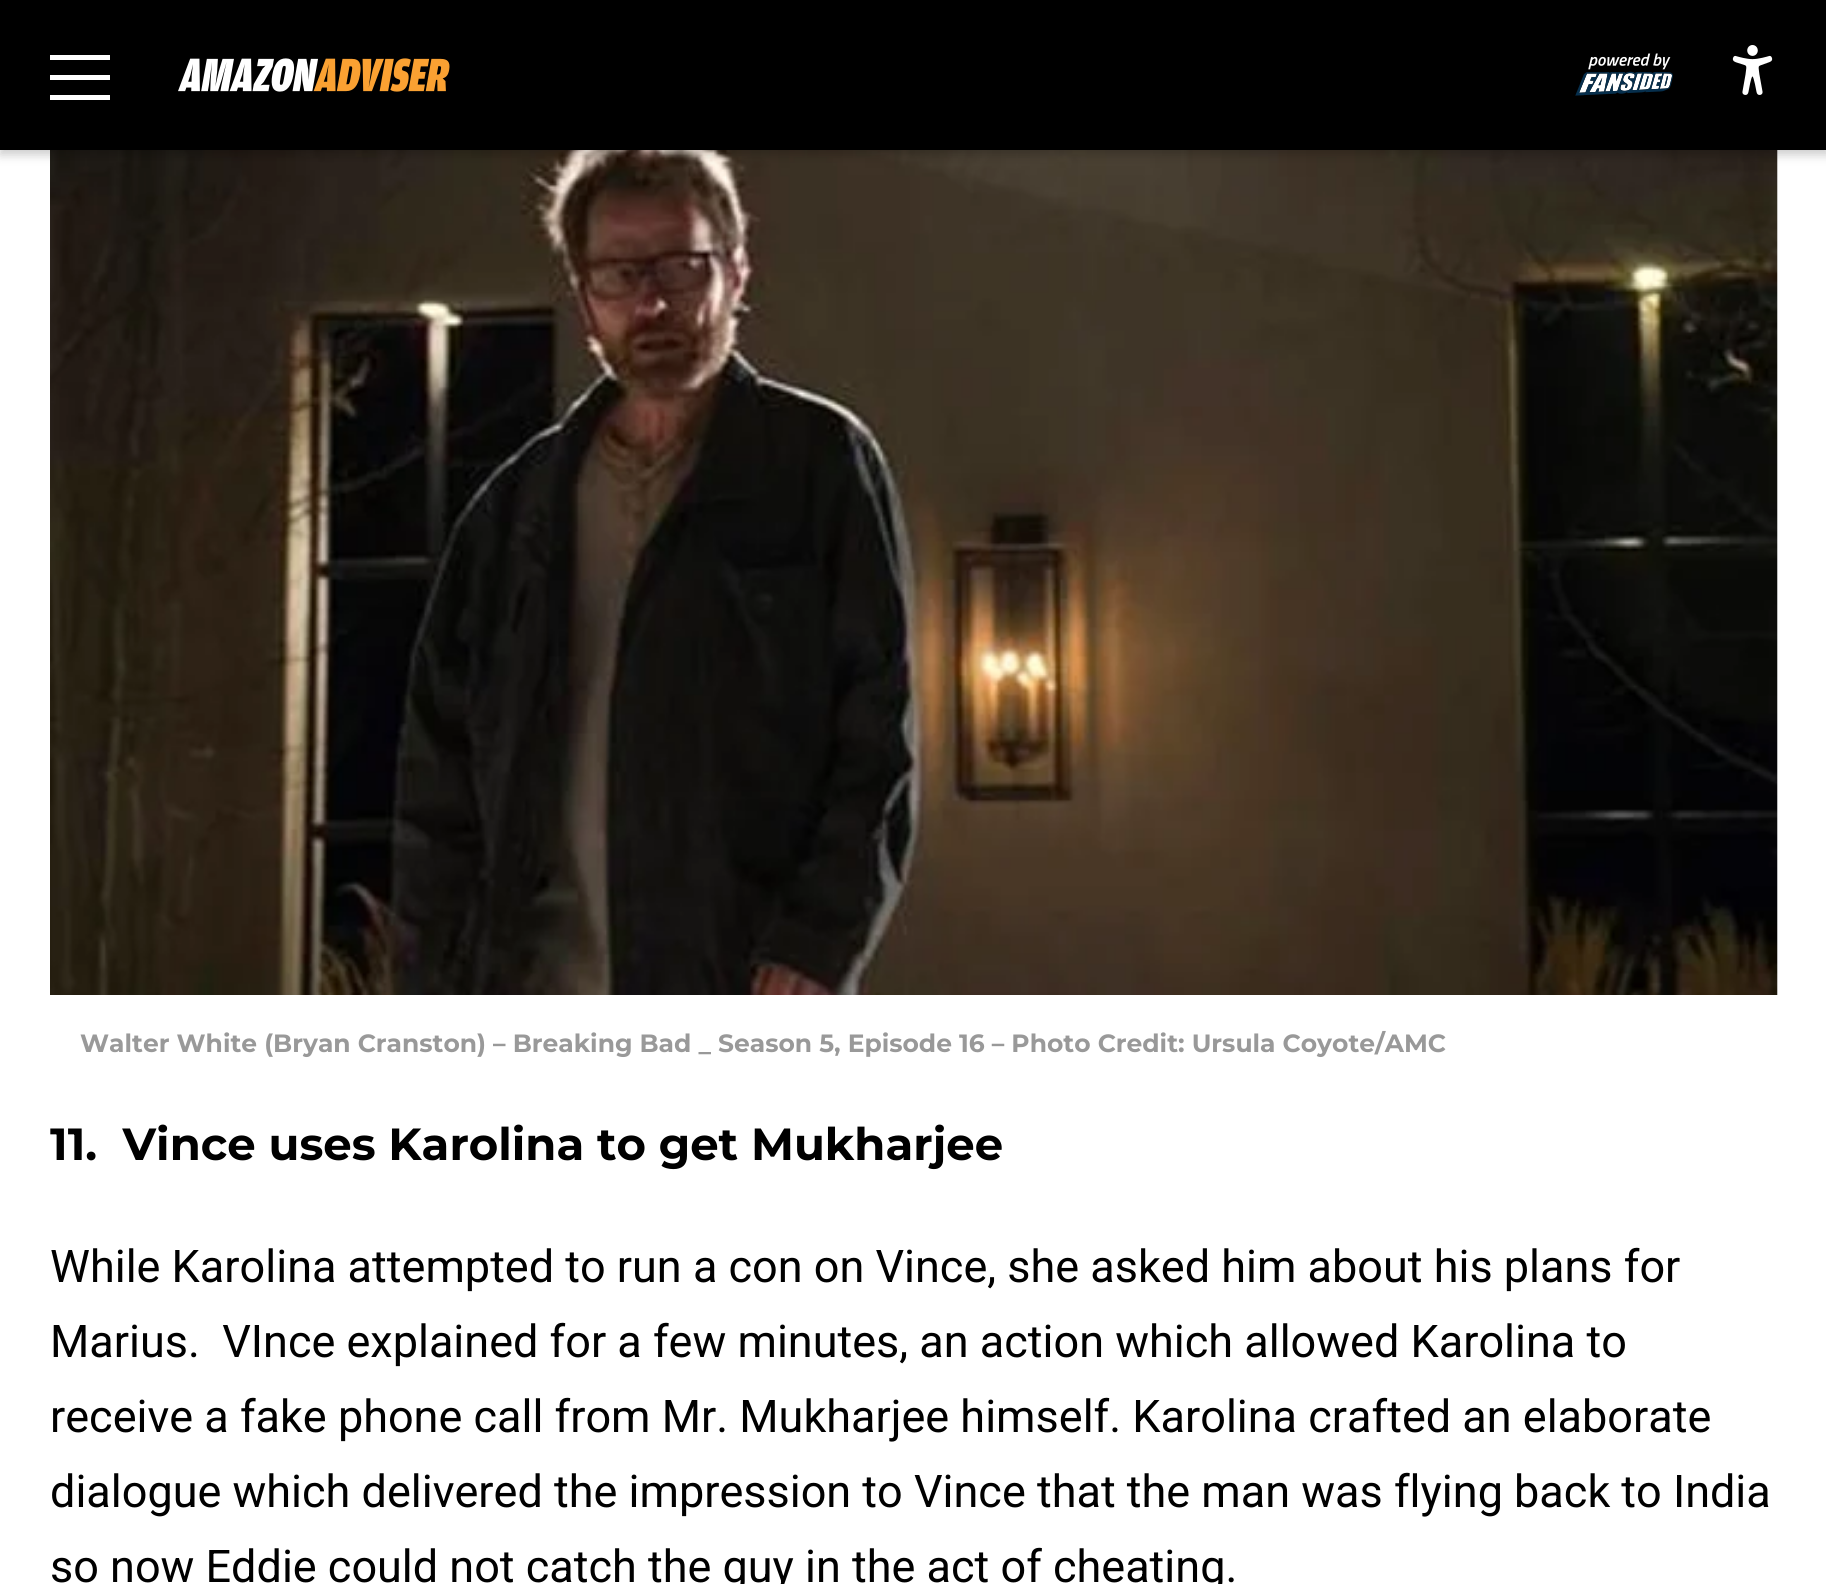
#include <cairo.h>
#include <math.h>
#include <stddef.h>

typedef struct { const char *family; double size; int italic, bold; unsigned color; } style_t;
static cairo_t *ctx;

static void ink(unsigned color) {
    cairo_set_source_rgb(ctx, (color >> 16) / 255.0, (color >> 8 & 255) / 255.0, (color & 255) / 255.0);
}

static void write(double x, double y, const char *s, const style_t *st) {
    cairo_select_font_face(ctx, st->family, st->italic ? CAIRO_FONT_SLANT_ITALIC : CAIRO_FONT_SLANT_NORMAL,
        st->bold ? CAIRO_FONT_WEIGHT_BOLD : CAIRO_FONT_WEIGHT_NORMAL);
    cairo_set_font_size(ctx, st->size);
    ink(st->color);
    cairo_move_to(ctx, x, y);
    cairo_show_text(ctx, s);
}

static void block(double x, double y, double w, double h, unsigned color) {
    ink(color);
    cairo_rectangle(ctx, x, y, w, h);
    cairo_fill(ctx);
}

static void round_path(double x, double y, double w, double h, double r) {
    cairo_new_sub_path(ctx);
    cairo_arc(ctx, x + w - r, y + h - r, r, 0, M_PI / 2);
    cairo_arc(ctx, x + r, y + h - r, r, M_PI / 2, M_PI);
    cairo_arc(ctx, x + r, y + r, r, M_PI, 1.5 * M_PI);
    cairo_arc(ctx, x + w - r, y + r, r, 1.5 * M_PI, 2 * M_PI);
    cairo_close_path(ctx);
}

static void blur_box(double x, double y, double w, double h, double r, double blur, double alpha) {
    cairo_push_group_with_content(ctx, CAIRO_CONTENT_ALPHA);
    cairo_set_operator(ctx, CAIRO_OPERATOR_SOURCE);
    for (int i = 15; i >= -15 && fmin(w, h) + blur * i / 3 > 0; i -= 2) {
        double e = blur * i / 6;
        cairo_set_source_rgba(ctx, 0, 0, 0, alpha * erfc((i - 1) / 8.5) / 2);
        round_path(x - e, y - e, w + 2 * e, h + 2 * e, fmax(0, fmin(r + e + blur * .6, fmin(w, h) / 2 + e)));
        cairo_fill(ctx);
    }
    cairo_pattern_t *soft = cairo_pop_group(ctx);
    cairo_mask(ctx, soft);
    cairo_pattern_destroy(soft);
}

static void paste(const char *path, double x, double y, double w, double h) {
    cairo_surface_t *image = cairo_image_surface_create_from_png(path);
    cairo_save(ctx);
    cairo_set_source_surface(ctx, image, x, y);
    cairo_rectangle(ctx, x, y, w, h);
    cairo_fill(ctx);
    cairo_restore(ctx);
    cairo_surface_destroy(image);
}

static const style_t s1 = {"Montserrat Thin", 25, 0, 0, 0x999999};
static const style_t s2 = {"Montserrat Thin", 45, 0, 0, 0x000000};
static const style_t s3 = {"Roboto", 45, 0, 0, 0x000000};

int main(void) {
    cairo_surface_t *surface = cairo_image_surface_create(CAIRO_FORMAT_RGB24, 1826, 1584);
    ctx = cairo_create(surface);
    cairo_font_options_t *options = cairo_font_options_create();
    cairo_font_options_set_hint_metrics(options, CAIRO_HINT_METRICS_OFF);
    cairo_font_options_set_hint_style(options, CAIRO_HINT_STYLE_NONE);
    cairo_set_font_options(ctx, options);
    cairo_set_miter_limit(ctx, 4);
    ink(0xffffff);
    cairo_paint(ctx);
    block(1777, 150, 1, 845, 0xf7f7f7);
    paste("pic4.png", 50, 150, 1728, 845);
    ink(0x000000);
    blur_box(0, 5, 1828, 150, 0, 5, 0.2);
    block(0, 0, 1826, 150, 0x000000);
    block(50, 55, 60, 5, 0xffffff);
    block(50, 75, 60, 5, 0xffffff);
    block(50, 95, 60, 5, 0xffffff);
    paste("pic1.png", 178, 58, 272, 34);
    paste("pic2.png", 1575, 53, 98, 43);
    paste("pic3.png", 1732, 45, 41, 50);
    write(80, 1052, "Walter White (Bryan Cranston) – Breaking Bad _ Season 5, Episode 16 – Photo Credit: Ursula Coyote/AMC", &s1);
    write(50, 1160, "11.  Vince uses Karolina to get Mukharjee", &s2);
    write(50, 1282, "While Karolina attempted to run a con on Vince, she asked him about his plans for", &s3);
    write(50, 1357, "Marius.  VInce explained for a few minutes, an action which allowed Karolina to", &s3);
    write(50, 1432, "receive a fake phone call from Mr. Mukharjee himself. Karolina crafted an elaborate", &s3);
    write(50, 1507, "dialogue which delivered the impression to Vince that the man was flying back to India", &s3);
    write(50, 1582, "so now Eddie could not catch the guy in the act of cheating.", &s3);
    cairo_surface_write_to_png(surface, "screenshot.png");
    cairo_font_options_destroy(options);
    cairo_destroy(ctx);
    cairo_surface_destroy(surface);
    return 0;
}
